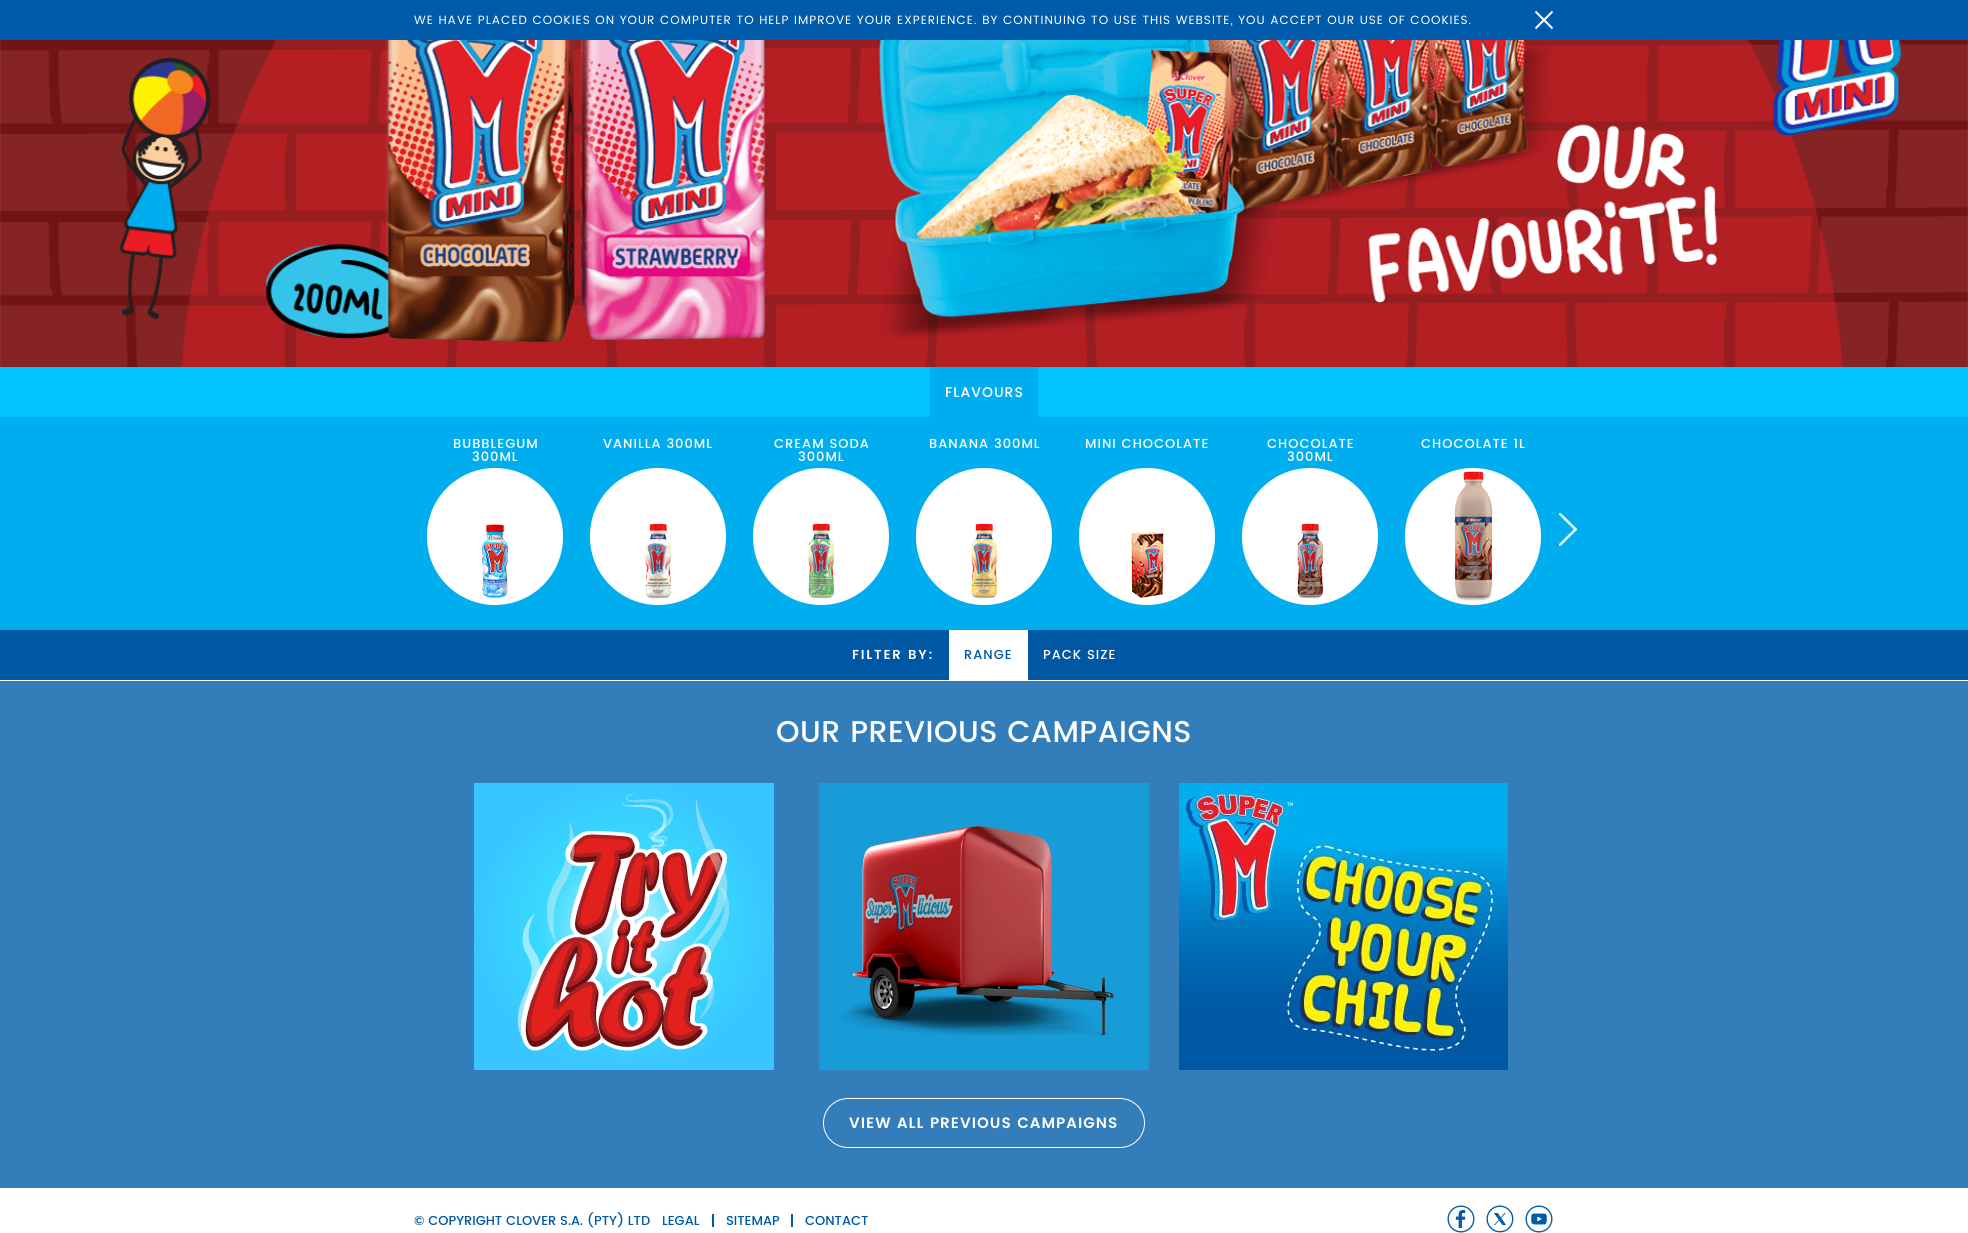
#include <cairo.h>
#include <math.h>
#include <stddef.h>

typedef struct { const char *family; double size; int italic, bold; unsigned color; } style_t;
static cairo_t *ctx;

static void ink(unsigned color) {
    cairo_set_source_rgb(ctx, (color >> 16) / 255.0, (color >> 8 & 255) / 255.0, (color & 255) / 255.0);
}

static void write(double x, double y, const char *s, const style_t *st) {
    cairo_select_font_face(ctx, st->family, st->italic ? CAIRO_FONT_SLANT_ITALIC : CAIRO_FONT_SLANT_NORMAL,
        st->bold ? CAIRO_FONT_WEIGHT_BOLD : CAIRO_FONT_WEIGHT_NORMAL);
    cairo_set_font_size(ctx, st->size);
    ink(st->color);
    cairo_move_to(ctx, x, y);
    cairo_show_text(ctx, s);
}

static void write_spaced(double x, double y, const char *s, double letter, double word) {
    cairo_move_to(ctx, x, y);
    while (*s) {
        char ch[5] = {0};
        int n = 0;
        do ch[n++] = *s++; while ((*s & 0xC0) == 0x80);
        cairo_show_text(ctx, ch);
        cairo_rel_move_to(ctx, letter + word * (*ch == ' '), 0);
    }
}

static void block(double x, double y, double w, double h, unsigned color) {
    ink(color);
    cairo_rectangle(ctx, x, y, w, h);
    cairo_fill(ctx);
}

static void round_path(double x, double y, double w, double h, double r) {
    cairo_new_sub_path(ctx);
    cairo_arc(ctx, x + w - r, y + h - r, r, 0, M_PI / 2);
    cairo_arc(ctx, x + r, y + h - r, r, M_PI / 2, M_PI);
    cairo_arc(ctx, x + r, y + r, r, M_PI, 1.5 * M_PI);
    cairo_arc(ctx, x + w - r, y + r, r, 1.5 * M_PI, 2 * M_PI);
    cairo_close_path(ctx);
}

static void paste(const char *path, double x, double y, double w, double h) {
    cairo_surface_t *image = cairo_image_surface_create_from_png(path);
    cairo_save(ctx);
    cairo_set_source_surface(ctx, image, x, y);
    cairo_rectangle(ctx, x, y, w, h);
    cairo_fill(ctx);
    cairo_restore(ctx);
    cairo_surface_destroy(image);
}

static const style_t s1 = {"Poppins Medium", 13, 0, 0, 0x0058a4};

int main(void) {
    cairo_surface_t *surface = cairo_image_surface_create(CAIRO_FORMAT_RGB24, 1968, 1233);
    ctx = cairo_create(surface);
    cairo_font_options_t *options = cairo_font_options_create();
    cairo_font_options_set_hint_metrics(options, CAIRO_HINT_METRICS_OFF);
    cairo_font_options_set_hint_style(options, CAIRO_HINT_STYLE_NONE);
    cairo_set_font_options(ctx, options);
    cairo_set_miter_limit(ctx, 4);
    ink(0xffffff);
    cairo_paint(ctx);
    block(0, 0, 1968, 40, 0x005bab);
    cairo_select_font_face(ctx, "Poppins", CAIRO_FONT_SLANT_NORMAL, CAIRO_FONT_WEIGHT_NORMAL);
    cairo_set_font_size(ctx, 12);
    ink(0xffffff);
    write_spaced(414, 24, "WE HAVE PLACED COOKIES ON YOUR COMPUTER TO HELP IMPROVE YOUR EXPERIENCE. BY CONTINUING TO USE THIS WEBSITE, YOU ACCEPT OUR USE OF COOKIES.", 1, 0);
    paste("pic1.png", 1534, 10, 20, 20);
    paste("pic2.png", 0, 40, 1968, 327);
    block(0, 367, 1968, 50, 0x00c3ff);
    block(930, 367, 108, 50, 0x00aeef);
    cairo_select_font_face(ctx, "Poppins Medium", CAIRO_FONT_SLANT_NORMAL, CAIRO_FONT_WEIGHT_NORMAL);
    cairo_set_font_size(ctx, 14);
    ink(0xffffff);
    write_spaced(945, 397, "FLAVOURS", 1, 0);
    block(0, 417, 1968, 213, 0x00aeef);
    cairo_set_font_size(ctx, 13);
    ink(0xffffff);
    write_spaced(453, 448, "BUBBLEGUM", 1, 0);
    write_spaced(472, 461, "300ML", 1, 0);
    round_path(427, 468, 136, 137, 68);
    cairo_fill(ctx);
    paste("pic3.png", 482, 524, 26, 74);
    write_spaced(603, 448, "VANILLA 300ML", 1, 0);
    round_path(590, 468, 136, 137, 68);
    cairo_fill(ctx);
    paste("pic4.png", 645, 523, 26, 76);
    write_spaced(774, 448, "CREAM SODA", 1, 0);
    write_spaced(798, 461, "300ML", 1, 0);
    round_path(753, 468, 136, 137, 68);
    cairo_fill(ctx);
    paste("pic5.png", 808, 523, 27, 76);
    write_spaced(929, 448, "BANANA 300ML", 1, 0);
    round_path(916, 468, 136, 137, 68);
    cairo_fill(ctx);
    paste("pic6.png", 971, 523, 27, 76);
    write_spaced(1085, 448, "MINI CHOCOLATE", 1, 0);
    round_path(1079, 468, 136, 137, 68);
    cairo_fill(ctx);
    paste("pic7.png", 1131, 532, 33, 66);
    write_spaced(1267, 448, "CHOCOLATE", 1, 0);
    write_spaced(1287, 461, "300ML", 1, 0);
    round_path(1242, 468, 136, 137, 68);
    cairo_fill(ctx);
    paste("pic8.png", 1297, 523, 27, 76);
    write_spaced(1421, 448, "CHOCOLATE 1L", 1, 0);
    round_path(1405, 468, 136, 137, 68);
    cairo_fill(ctx);
    paste("pic9.png", 1454, 471, 39, 130);
    paste("pic10.png", 1559, 513, 18, 33);
    block(0, 630, 1968, 50, 0x0058a4);
    cairo_select_font_face(ctx, "Poppins SemiBold", CAIRO_FONT_SLANT_NORMAL, CAIRO_FONT_WEIGHT_NORMAL);
    ink(0xffffff);
    write_spaced(852, 659, "FILTER BY:", 1.75, 0);
    block(949, 630, 79, 50, 0xffffff);
    cairo_select_font_face(ctx, "Poppins Medium", CAIRO_FONT_SLANT_NORMAL, CAIRO_FONT_WEIGHT_NORMAL);
    ink(0x0058a4);
    write_spaced(964, 659, "RANGE", 1, 0);
    ink(0xffffff);
    write_spaced(1043, 659, "PACK SIZE", 1, 0);
    block(0, 681, 1968, 507, 0x337dba);
    cairo_set_font_size(ctx, 30);
    ink(0xffffff);
    write_spaced(776, 742, "OUR PREVIOUS CAMPAIGNS", 0.5, 0);
    paste("pic11.png", 474, 783, 300, 287);
    paste("pic12.png", 819, 783, 330, 287);
    paste("pic13.png", 1179, 783, 329, 287);
    round_path(823.5, 1098.5, 321, 49, 24.5);
    cairo_set_line_width(ctx, 1);
    cairo_stroke(ctx);
    cairo_select_font_face(ctx, "Poppins SemiBold", CAIRO_FONT_SLANT_NORMAL, CAIRO_FONT_WEIGHT_NORMAL);
    cairo_set_font_size(ctx, 15);
    write_spaced(849, 1128, "VIEW ALL PREVIOUS CAMPAIGNS", 1, 0);
    write(414, 1225, "© COPYRIGHT CLOVER S.A. (PTY) LTD", &s1);
    write(662, 1225, "LEGAL", &s1);
    block(712, 1214, 2, 13, 0x005ca9);
    write(726, 1225, "SITEMAP", &s1);
    block(791, 1214, 2, 13, 0x005ca9);
    write(805, 1225, "CONTACT", &s1);
    paste("pic14.png", 1447, 1205, 28, 28);
    paste("pic15.png", 1486, 1205, 28, 28);
    paste("pic16.png", 1525, 1205, 28, 28);
    cairo_surface_write_to_png(surface, "screenshot.png");
    cairo_font_options_destroy(options);
    cairo_destroy(ctx);
    cairo_surface_destroy(surface);
    return 0;
}
